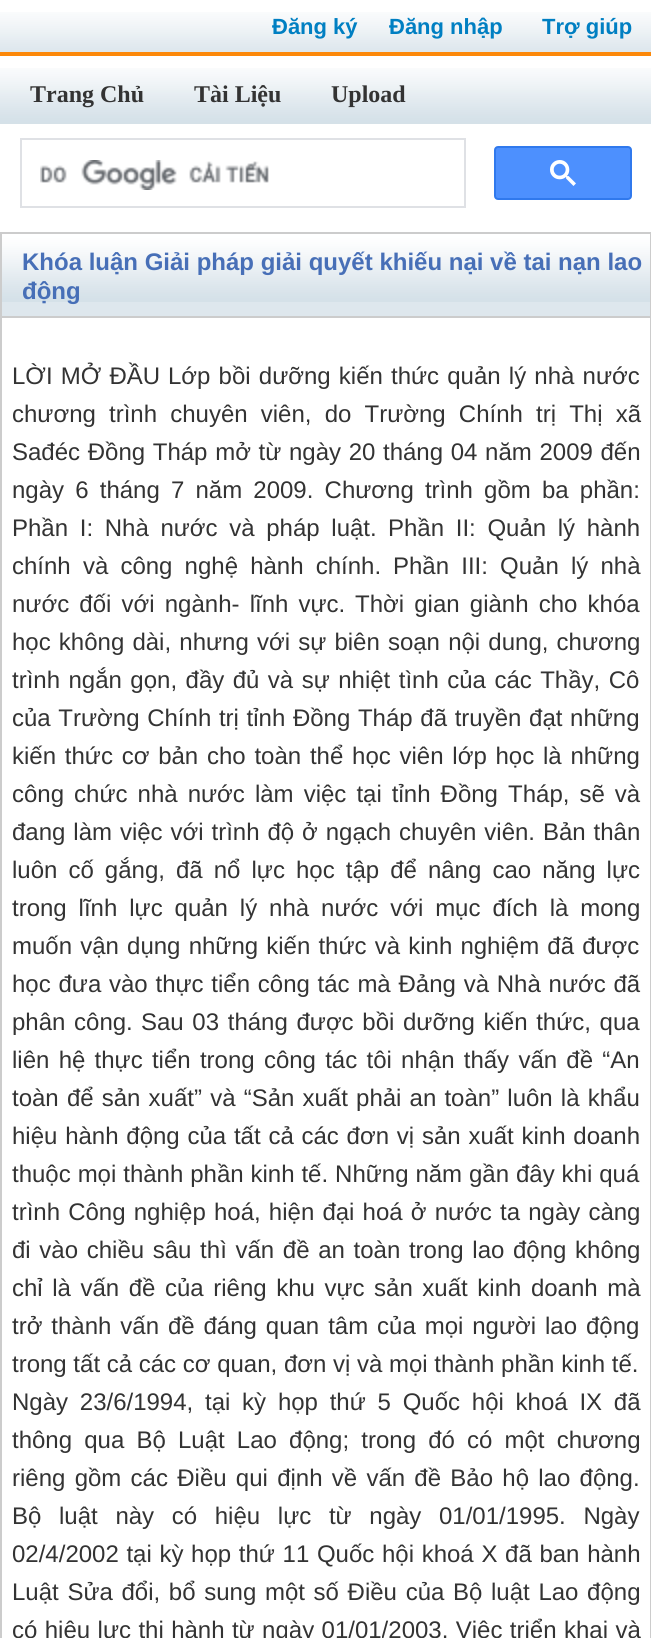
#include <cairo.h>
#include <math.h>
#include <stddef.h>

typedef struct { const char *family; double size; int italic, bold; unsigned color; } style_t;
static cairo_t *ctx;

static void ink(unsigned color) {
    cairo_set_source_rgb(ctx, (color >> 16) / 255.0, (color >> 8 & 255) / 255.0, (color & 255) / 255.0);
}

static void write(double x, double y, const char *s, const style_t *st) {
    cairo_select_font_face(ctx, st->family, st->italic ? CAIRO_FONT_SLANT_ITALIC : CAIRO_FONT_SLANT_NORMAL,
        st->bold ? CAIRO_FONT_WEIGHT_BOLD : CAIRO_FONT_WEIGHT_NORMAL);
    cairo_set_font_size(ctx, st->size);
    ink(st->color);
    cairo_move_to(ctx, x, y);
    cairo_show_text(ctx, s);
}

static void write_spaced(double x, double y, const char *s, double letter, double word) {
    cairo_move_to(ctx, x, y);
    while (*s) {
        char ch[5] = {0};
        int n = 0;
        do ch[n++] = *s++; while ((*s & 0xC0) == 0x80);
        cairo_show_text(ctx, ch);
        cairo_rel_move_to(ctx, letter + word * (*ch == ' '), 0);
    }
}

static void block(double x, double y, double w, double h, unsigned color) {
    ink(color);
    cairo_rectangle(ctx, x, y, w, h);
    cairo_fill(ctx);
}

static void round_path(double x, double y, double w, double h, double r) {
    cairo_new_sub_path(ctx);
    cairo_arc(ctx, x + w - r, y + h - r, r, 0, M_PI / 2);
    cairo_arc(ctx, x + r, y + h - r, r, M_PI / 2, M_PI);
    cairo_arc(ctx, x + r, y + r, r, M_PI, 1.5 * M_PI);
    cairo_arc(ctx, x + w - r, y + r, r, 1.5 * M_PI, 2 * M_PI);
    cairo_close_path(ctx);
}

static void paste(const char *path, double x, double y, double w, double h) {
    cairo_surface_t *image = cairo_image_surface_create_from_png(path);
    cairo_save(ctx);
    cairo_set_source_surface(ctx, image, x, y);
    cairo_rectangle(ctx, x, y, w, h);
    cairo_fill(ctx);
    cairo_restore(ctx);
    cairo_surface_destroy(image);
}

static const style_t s1 = {"Liberation Sans", 22, 0, 1, 0x007fc2};
static const style_t s2 = {"Liberation Serif", 24, 0, 1, 0x333333};
static const style_t s3 = {"Liberation Sans", 24, 0, 1, 0x476fb7};
static const style_t s4 = {"Liberation Sans", 24, 0, 0, 0x333333};

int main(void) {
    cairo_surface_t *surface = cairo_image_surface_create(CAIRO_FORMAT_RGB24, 651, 1638);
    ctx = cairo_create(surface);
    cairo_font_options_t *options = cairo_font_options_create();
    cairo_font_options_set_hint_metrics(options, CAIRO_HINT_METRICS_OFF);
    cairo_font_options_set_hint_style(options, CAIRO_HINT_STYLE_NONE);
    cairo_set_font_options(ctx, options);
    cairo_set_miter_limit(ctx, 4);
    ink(0xffffff);
    cairo_paint(ctx);
    paste("pic1.png", 0, 12, 651, 40);
    write(272, 34, "Đăng ký", &s1);
    write(389, 34, "Đăng nhập", &s1);
    write(542, 34, "Trợ giúp", &s1);
    block(0, 52, 651, 4, 0xfc8809);
    paste("pic2.png", 0, 68, 651, 56);
    write(30, 102, "Trang Chủ", &s2);
    write(194, 102, "Tài Liệu", &s2);
    write(331, 102, "Upload", &s2);
    cairo_rectangle(ctx, 21, 139, 444, 68);
    ink(0xdfe1e5);
    cairo_stroke(ctx);
    paste("pic3.png", 40, 160, 229, 30);
    ink(0x4d90fe);
    round_path(495, 147, 136, 52, 3);
    cairo_fill_preserve(ctx);
    ink(0x3079ed);
    cairo_stroke(ctx);
    paste("pic4.png", 550, 160, 26, 26);
    block(2, 302, 648, 14, 0xdee7ed);
    paste("pic5.png", 2, 234, 648, 68);
    cairo_rectangle(ctx, 1, 233, 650, 84);
    ink(0xcccccc);
    cairo_stroke(ctx);
    write(22, 270, "Khóa luận Giải pháp giải quyết khiếu nại về tai nạn lao", &s3);
    write(22, 299, "động", &s3);
    block(650, 318, 1, 1320, 0xcccccc);
    block(0, 318, 2, 1320, 0xcccccc);
    cairo_select_font_face(ctx, "Liberation Sans", CAIRO_FONT_SLANT_NORMAL, CAIRO_FONT_WEIGHT_NORMAL);
    ink(0x333333);
    write_spaced(12, 384, "LỜI MỞ ĐẦU", 0, 1.5);
    write_spaced(168, 384, "Lớp bồi dưỡng kiến thức quản lý nhà nước", 0, 1.5);
    write_spaced(12, 422, "chương trình chuyên viên, do Trường Chính trị Thị xã", 0, 6.5);
    write_spaced(12, 460, "Sađéc Đồng Tháp mở từ ngày 20 tháng 04 năm 2009 đến", 0, 1);
    write_spaced(12, 498, "ngày 6 tháng 7 năm 2009. Chương trình gồm ba phần:", 0, 4.5);
    write_spaced(12, 536, "Phần I: Nhà nước và pháp luật.", 0, 5);
    write_spaced(388, 536, "Phần II: Quản lý hành", 0, 5);
    write_spaced(12, 574, "chính và công nghệ hành chính.", 0, 5.5);
    write_spaced(393, 574, "Phần III: Quản lý nhà", 0, 5.5);
    write_spaced(12, 612, "nước đối với ngành- lĩnh vực.", 0, 3.5);
    write_spaced(355, 612, "Thời gian giành cho khóa", 0, 3.5);
    write_spaced(12, 650, "học không dài, nhưng với sự biên soạn nội dung, chương", 0, 1.5);
    write_spaced(12, 688, "trình ngắn gọn, đầy đủ và sự nhiệt tình của các Thầy, Cô", 0, 1.8);
    write_spaced(12, 726, "của Trường Chính trị tỉnh Đồng Tháp đã truyền đạt những", 0, 1);
    write_spaced(12, 764, "kiến thức cơ bản cho toàn thể học viên lớp học là những", 0, 2.1);
    write_spaced(12, 802, "công chức nhà nước làm việc tại tỉnh Đồng Tháp, sẽ và", 0, 3.4);
    write_spaced(12, 840, "đang làm việc với trình độ ở ngạch chuyên viên. Bản thân", 0, 1.25);
    write_spaced(12, 878, "luôn cố gắng, đã nổ lực học tập để nâng cao năng lực", 0, 4.4);
    write_spaced(12, 916, "trong lĩnh lực quản lý nhà nước với mục đích là mong", 0, 5.25);
    write_spaced(12, 954, "muốn vận dụng những kiến thức và kinh nghiệm đã được", 0, 1.5);
    write_spaced(12, 992, "học đưa vào thực tiển công tác mà Đảng và Nhà nước đã", 0, 1.1);
    write_spaced(12, 1030, "phân công.", 0, 2);
    write_spaced(141, 1030, "Sau 03 tháng được bồi dưỡng kiến thức, qua", 0, 2);
    write_spaced(12, 1068, "liên hệ thực tiển trong công tác tôi nhận thấy vấn đề “An", 0, 2.6);
    write_spaced(12, 1106, "toàn để sản xuất” và “Sản xuất phải an toàn” luôn là khẩu", 0, 1.5);
    write_spaced(12, 1144, "hiệu hành động của tất cả các đơn vị sản xuất kinh doanh", 0, 1.1);
    write_spaced(12, 1182, "thuộc mọi thành phần kinh tế. Những năm gần đây khi quá", 0, 0.25);
    write_spaced(12, 1220, "trình Công nghiệp hoá, hiện đại hoá ở nước ta ngày càng", 0, 1.5);
    write_spaced(12, 1258, "đi vào chiều sâu thì vấn đề an toàn trong lao động không", 0, 2);
    write_spaced(12, 1296, "chỉ là vấn đề của riêng khu vực sản xuất kinh doanh mà", 0, 2.9);
    write_spaced(12, 1334, "trở thành vấn đề đáng quan tâm của mọi người lao động", 0, 2.25);
    write(12, 1372, "trong tất cả các cơ quan, đơn vị và mọi thành phần kinh tế.", &s4);
    write_spaced(12, 1410, "Ngày 23/6/1994, tại kỳ họp thứ 5 Quốc hội khoá IX đã", 0, 5.1);
    write_spaced(12, 1448, "thông qua Bộ Luật Lao động; trong đó có một chương", 0, 5.5);
    write_spaced(12, 1486, "riêng gồm các Điều qui định về vấn đề Bảo hộ lao động.", 0, 2.6);
    write_spaced(12, 1524, "Bộ luật này có hiệu lực từ ngày 01/01/1995. Ngày", 0, 11);
    write_spaced(12, 1562, "02/4/2002 tại kỳ họp thứ 11 Quốc hội khoá X đã ban hành", 0, 1);
    write_spaced(12, 1600, "Luật Sửa đổi, bổ sung một số Điều của Bộ luật Lao động", 0, 2);
    write_spaced(12, 1638, "có hiệu lực thi hành từ ngày 01/01/2003. Việc triển khai và", 0, 0.75);
    cairo_surface_write_to_png(surface, "screenshot.png");
    cairo_font_options_destroy(options);
    cairo_destroy(ctx);
    cairo_surface_destroy(surface);
    return 0;
}
